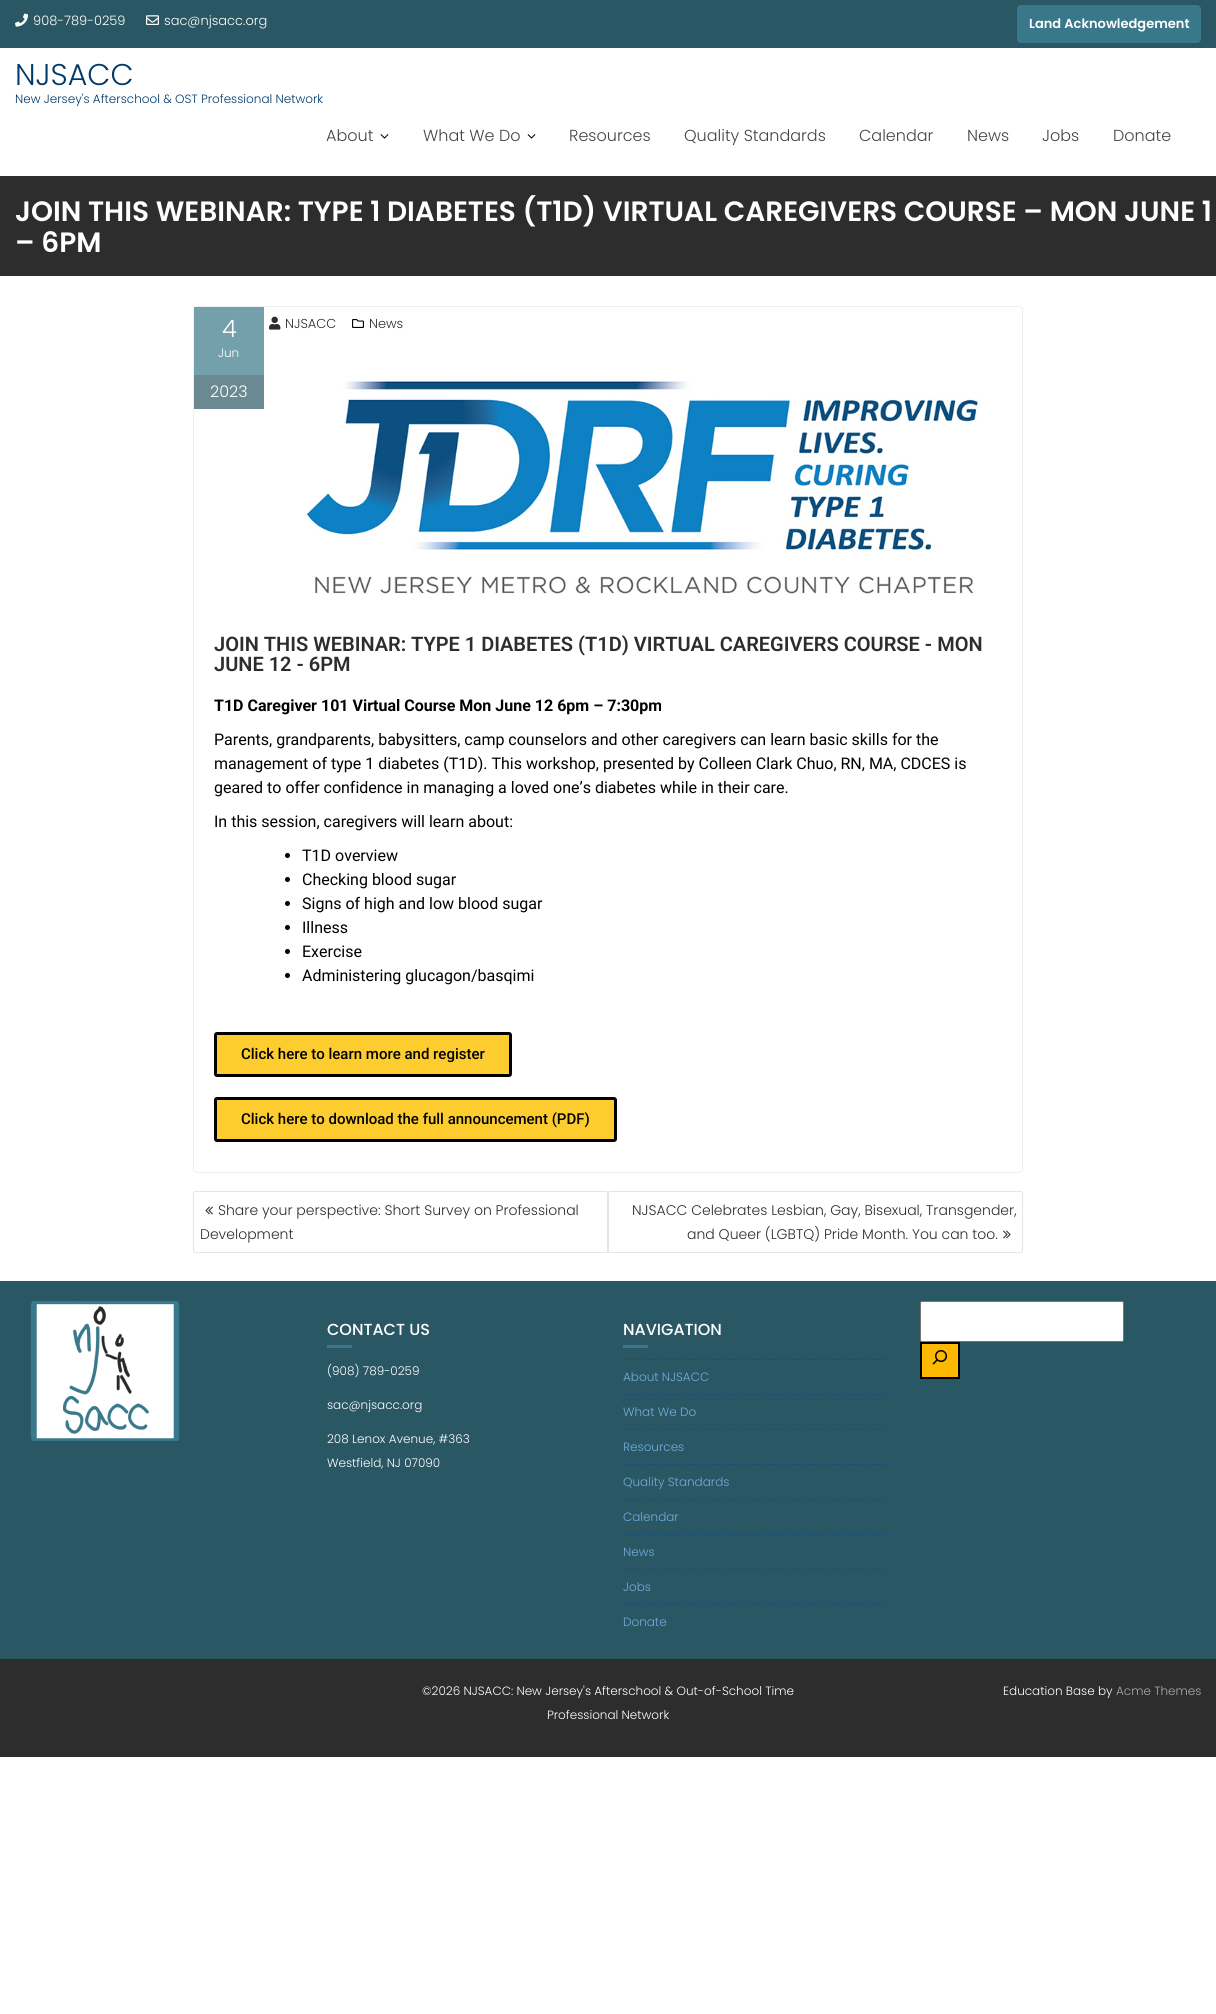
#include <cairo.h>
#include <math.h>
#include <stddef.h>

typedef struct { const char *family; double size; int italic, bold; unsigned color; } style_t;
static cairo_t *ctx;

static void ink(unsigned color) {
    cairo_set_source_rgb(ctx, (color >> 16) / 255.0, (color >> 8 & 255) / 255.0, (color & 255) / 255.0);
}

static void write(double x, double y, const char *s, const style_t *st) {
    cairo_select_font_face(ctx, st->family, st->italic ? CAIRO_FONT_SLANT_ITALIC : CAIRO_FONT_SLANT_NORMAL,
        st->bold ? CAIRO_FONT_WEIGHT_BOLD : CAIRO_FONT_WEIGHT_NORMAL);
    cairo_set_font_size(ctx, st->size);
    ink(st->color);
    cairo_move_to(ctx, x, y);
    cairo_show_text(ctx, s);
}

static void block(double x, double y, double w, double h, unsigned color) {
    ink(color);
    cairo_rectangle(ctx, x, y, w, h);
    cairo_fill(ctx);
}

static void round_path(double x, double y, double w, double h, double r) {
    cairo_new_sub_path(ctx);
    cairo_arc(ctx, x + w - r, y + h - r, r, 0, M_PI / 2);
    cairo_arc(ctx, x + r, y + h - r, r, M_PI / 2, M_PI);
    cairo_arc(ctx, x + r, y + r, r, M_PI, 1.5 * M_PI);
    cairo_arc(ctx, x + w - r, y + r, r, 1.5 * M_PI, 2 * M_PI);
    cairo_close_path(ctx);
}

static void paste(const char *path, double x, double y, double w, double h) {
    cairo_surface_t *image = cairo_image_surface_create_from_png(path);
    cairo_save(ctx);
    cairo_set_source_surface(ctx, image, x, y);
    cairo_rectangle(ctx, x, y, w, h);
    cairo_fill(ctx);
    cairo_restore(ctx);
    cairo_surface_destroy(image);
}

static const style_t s1 = {"Poppins Light", 13, 0, 0, 0xffffff};
static const style_t s2 = {"Poppins SemiBold", 13, 0, 0, 0xffffff};
static const style_t s3 = {"Poppins Light", 30, 0, 0, 0x003a6a};
static const style_t s4 = {"Poppins Light", 12, 0, 0, 0x003a6a};
static const style_t s5 = {"Poppins Light", 16, 0, 0, 0x444444};
static const style_t s6 = {"Poppins SemiBold", 28, 0, 0, 0xffffff};
static const style_t s7 = {"Poppins Light", 13, 0, 0, 0x2d2d2d};
static const style_t s8 = {"Roboto SemiBold", 20, 0, 0, 0x2d2d2d};
static const style_t s9 = {"Roboto", 16, 0, 1, 0x000000};
static const style_t s10 = {"Roboto", 16, 0, 0, 0x000000};
static const style_t s11 = {"Roboto Medium", 15, 0, 0, 0x000000};
static const style_t s12 = {"Poppins Light", 24, 0, 0, 0xffffff};
static const style_t s13 = {"Poppins Light", 12, 0, 0, 0xffffff};
static const style_t s14 = {"Poppins Light", 16, 0, 0, 0xffffff};
static const style_t s15 = {"Poppins Light", 14, 0, 0, 0x2d2d2d};
static const style_t s16 = {"Poppins Medium", 16, 0, 0, 0xffffff};
static const style_t s17 = {"Poppins Light", 12, 0, 0, 0x72acdc};
static const style_t s18 = {"Poppins Light", 12, 0, 0, 0xaaaaaa};

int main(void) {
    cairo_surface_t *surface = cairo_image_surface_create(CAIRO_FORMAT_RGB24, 1216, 2014);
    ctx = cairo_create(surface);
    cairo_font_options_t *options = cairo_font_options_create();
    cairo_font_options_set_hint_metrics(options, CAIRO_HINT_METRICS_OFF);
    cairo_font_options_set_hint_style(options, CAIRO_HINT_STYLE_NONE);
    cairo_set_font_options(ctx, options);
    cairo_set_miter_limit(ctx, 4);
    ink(0xffffff);
    cairo_paint(ctx);
    block(0, 0, 1216, 48, 0x2a5764);
    paste("pic1.png", 15, 13, 13, 14);
    write(33, 25, "908-789-0259", &s1);
    paste("pic2.png", 146, 15, 13, 10);
    write(164, 25, "sac@njsacc.org", &s1);
    ink(0x39788a);
    round_path(1018, 6, 182, 36, 3);
    cairo_fill_preserve(ctx);
    cairo_stroke(ctx);
    write(1029, 28, "Land Acknowledgement", &s2);
    write(15, 85, "NJSACC", &s3);
    write(15, 103, "New Jersey's Afterschool & OST Professional Network", &s4);
    write(326, 141, "About", &s5);
    paste("pic3.png", 380, 134, 9, 5);
    write(423, 141, "What We Do", &s5);
    paste("pic3.png", 527, 134, 9, 5);
    write(569, 141, "Resources", &s5);
    write(684, 141, "Quality Standards", &s5);
    write(859, 141, "Calendar", &s5);
    write(967, 141, "News", &s5);
    write(1042, 141, "Jobs", &s5);
    write(1113, 141, "Donate", &s5);
    block(0, 176, 1216, 100, 0x2d2d2d);
    write(15, 221, "JOIN THIS WEBINAR: TYPE 1 DIABETES (T1D) VIRTUAL CAREGIVERS COURSE – MON JUNE 1", &s6);
    write(15, 252, "– 6PM", &s6);
    round_path(193.5, 306.5, 829, 866, 3.5);
    ink(0xeeeeee);
    cairo_set_line_width(ctx, 1);
    cairo_stroke(ctx);
    paste("pic4.png", 269, 316, 12, 14);
    write(285, 328, "NJSACC", &s7);
    paste("pic5.png", 352, 319, 12, 9);
    write(369, 328, "News", &s7);
    paste("pic6.png", 304, 379, 677, 215);
    write(214, 651, "JOIN THIS WEBINAR: TYPE 1 DIABETES (T1D) VIRTUAL CAREGIVERS COURSE - MON", &s8);
    write(214, 671, "JUNE 12 - 6PM", &s8);
    write(214, 711, "T1D Caregiver 101 Virtual Course Mon June 12 6pm – 7:30pm", &s9);
    write(214, 745, "Parents, grandparents, babysitters, camp counselors and other caregivers can learn basic skills for the", &s10);
    write(214, 769, "management of type 1 diabetes (T1D). This workshop, presented by Colleen Clark Chuo, RN, MA, CDCES is", &s10);
    write(214, 793, "geared to offer confidence in managing a loved one’s diabetes while in their care.", &s10);
    write(214, 827, "In this session, caregivers will learn about:", &s10);
    cairo_new_path(ctx);
    cairo_arc(ctx, 287.5, 855.5, 2.5, 0, 2 * M_PI);
    cairo_fill(ctx);
    write(302, 861, "T1D overview", &s10);
    cairo_new_path(ctx);
    cairo_arc(ctx, 287.5, 879.5, 2.5, 0, 2 * M_PI);
    cairo_fill(ctx);
    write(302, 885, "Checking blood sugar", &s10);
    cairo_new_path(ctx);
    cairo_arc(ctx, 287.5, 903.5, 2.5, 0, 2 * M_PI);
    cairo_fill(ctx);
    write(302, 909, "Signs of high and low blood sugar", &s10);
    cairo_new_path(ctx);
    cairo_arc(ctx, 287.5, 927.5, 2.5, 0, 2 * M_PI);
    cairo_fill(ctx);
    write(302, 933, "Illness", &s10);
    cairo_new_path(ctx);
    cairo_arc(ctx, 287.5, 951.5, 2.5, 0, 2 * M_PI);
    cairo_fill(ctx);
    write(302, 957, "Exercise", &s10);
    cairo_new_path(ctx);
    cairo_arc(ctx, 287.5, 975.5, 2.5, 0, 2 * M_PI);
    cairo_fill(ctx);
    write(302, 981, "Administering glucagon/basqimi", &s10);
    ink(0xfdcd2f);
    round_path(215.5, 1033.5, 295, 42, 1.5);
    cairo_fill_preserve(ctx);
    ink(0x000000);
    cairo_set_line_width(ctx, 3);
    cairo_stroke(ctx);
    write(241, 1059, "Click here to learn more and register", &s11);
    ink(0xfdcd2f);
    round_path(215.5, 1098.5, 400, 42, 1.5);
    cairo_fill_preserve(ctx);
    ink(0x000000);
    cairo_stroke(ctx);
    write(241, 1124, "Click here to download the full announcement (PDF)", &s11);
    cairo_set_source_rgba(ctx, 0.224, 0.471, 0.541, 0.7);
    cairo_rectangle(ctx, 194, 307, 70, 68);
    cairo_fill(ctx);
    write(222, 337, "4", &s12);
    write(218, 357, "Jun", &s13);
    block(194, 375, 70, 34, 0x6a8993);
    write(210, 397, "2023", &s14);
    round_path(193.5, 1191.5, 414, 61, 1.5);
    ink(0xe5e5e5);
    cairo_set_line_width(ctx, 1);
    cairo_stroke(ctx);
    paste("pic7.png", 205, 1206, 8, 9);
    write(218, 1215, "Share your perspective: Short Survey on Professional", &s15);
    write(200, 1239, "Development", &s15);
    round_path(608.5, 1191.5, 414, 61, 1.5);
    ink(0xe5e5e5);
    cairo_stroke(ctx);
    write(632, 1215, "NJSACC Celebrates Lesbian, Gay, Bisexual, Transgender,", &s15);
    write(687, 1239, "and Queer (LGBTQ) Pride Month. You can too.", &s15);
    paste("pic8.png", 1003, 1230, 8, 9);
    block(0, 1281, 1216, 378, 0x2a5764);
    paste("pic9.png", 30, 1301, 150, 140);
    write(327, 1335, "CONTACT US", &s16);
    block(327, 1345, 25, 3, 0x39788a);
    write(327, 1375, "(908) 789-0259", &s13);
    write(327, 1409, "sac@njsacc.org", &s13);
    write(327, 1443, "208 Lenox Avenue, #363", &s13);
    write(327, 1467, "Westfield, NJ 07090", &s13);
    write(623, 1335, "NAVIGATION", &s16);
    block(623, 1345, 25, 3, 0x39788a);
    cairo_new_path(ctx);
    cairo_move_to(ctx, 623, 1359.5);
    cairo_line_to(ctx, 890, 1359.5);
    ink(0x165080);
    cairo_set_dash(ctx, (double[]){3, 1.98}, 2, 0);
    cairo_stroke(ctx);
    write(623, 1381, "About NJSACC", &s17);
    cairo_new_path(ctx);
    cairo_move_to(ctx, 623, 1394.5);
    cairo_line_to(ctx, 890, 1394.5);
    ink(0x165080);
    cairo_stroke(ctx);
    write(623, 1416, "What We Do", &s17);
    cairo_new_path(ctx);
    cairo_move_to(ctx, 623, 1429.5);
    cairo_line_to(ctx, 890, 1429.5);
    ink(0x165080);
    cairo_stroke(ctx);
    write(623, 1451, "Resources", &s17);
    cairo_new_path(ctx);
    cairo_move_to(ctx, 623, 1464.5);
    cairo_line_to(ctx, 890, 1464.5);
    ink(0x165080);
    cairo_stroke(ctx);
    write(623, 1486, "Quality Standards", &s17);
    cairo_new_path(ctx);
    cairo_move_to(ctx, 623, 1499.5);
    cairo_line_to(ctx, 890, 1499.5);
    ink(0x165080);
    cairo_stroke(ctx);
    write(623, 1521, "Calendar", &s17);
    cairo_new_path(ctx);
    cairo_move_to(ctx, 623, 1534.5);
    cairo_line_to(ctx, 890, 1534.5);
    ink(0x165080);
    cairo_stroke(ctx);
    write(623, 1556, "News", &s17);
    cairo_new_path(ctx);
    cairo_move_to(ctx, 623, 1569.5);
    cairo_line_to(ctx, 890, 1569.5);
    ink(0x165080);
    cairo_stroke(ctx);
    write(623, 1591, "Jobs", &s17);
    cairo_new_path(ctx);
    cairo_move_to(ctx, 623, 1604.5);
    cairo_line_to(ctx, 890, 1604.5);
    ink(0x165080);
    cairo_stroke(ctx);
    write(623, 1626, "Donate", &s17);
    ink(0xffffff);
    round_path(920.5, 1301.5, 203, 40, 1.5);
    cairo_fill_preserve(ctx);
    ink(0x767676);
    cairo_set_dash(ctx, NULL, 0, 0);
    cairo_stroke(ctx);
    ink(0xfcb900);
    cairo_rectangle(ctx, 921, 1343, 38, 35);
    cairo_fill_preserve(ctx);
    ink(0x000000);
    cairo_set_line_width(ctx, 2);
    cairo_stroke(ctx);
    paste("pic10.png", 932, 1350, 16, 15);
    block(0, 1659, 1216, 98, 0x2d2d2d);
    write(422, 1695, "©2026 NJSACC: New Jersey's Afterschool & Out-of-School Time", &s13);
    write(547, 1719, "Professional Network", &s13);
    write(1003, 1695, "Education Base by", &s13);
    write(1116, 1695, "Acme Themes", &s18);
    cairo_surface_write_to_png(surface, "screenshot.png");
    cairo_font_options_destroy(options);
    cairo_destroy(ctx);
    cairo_surface_destroy(surface);
    return 0;
}
